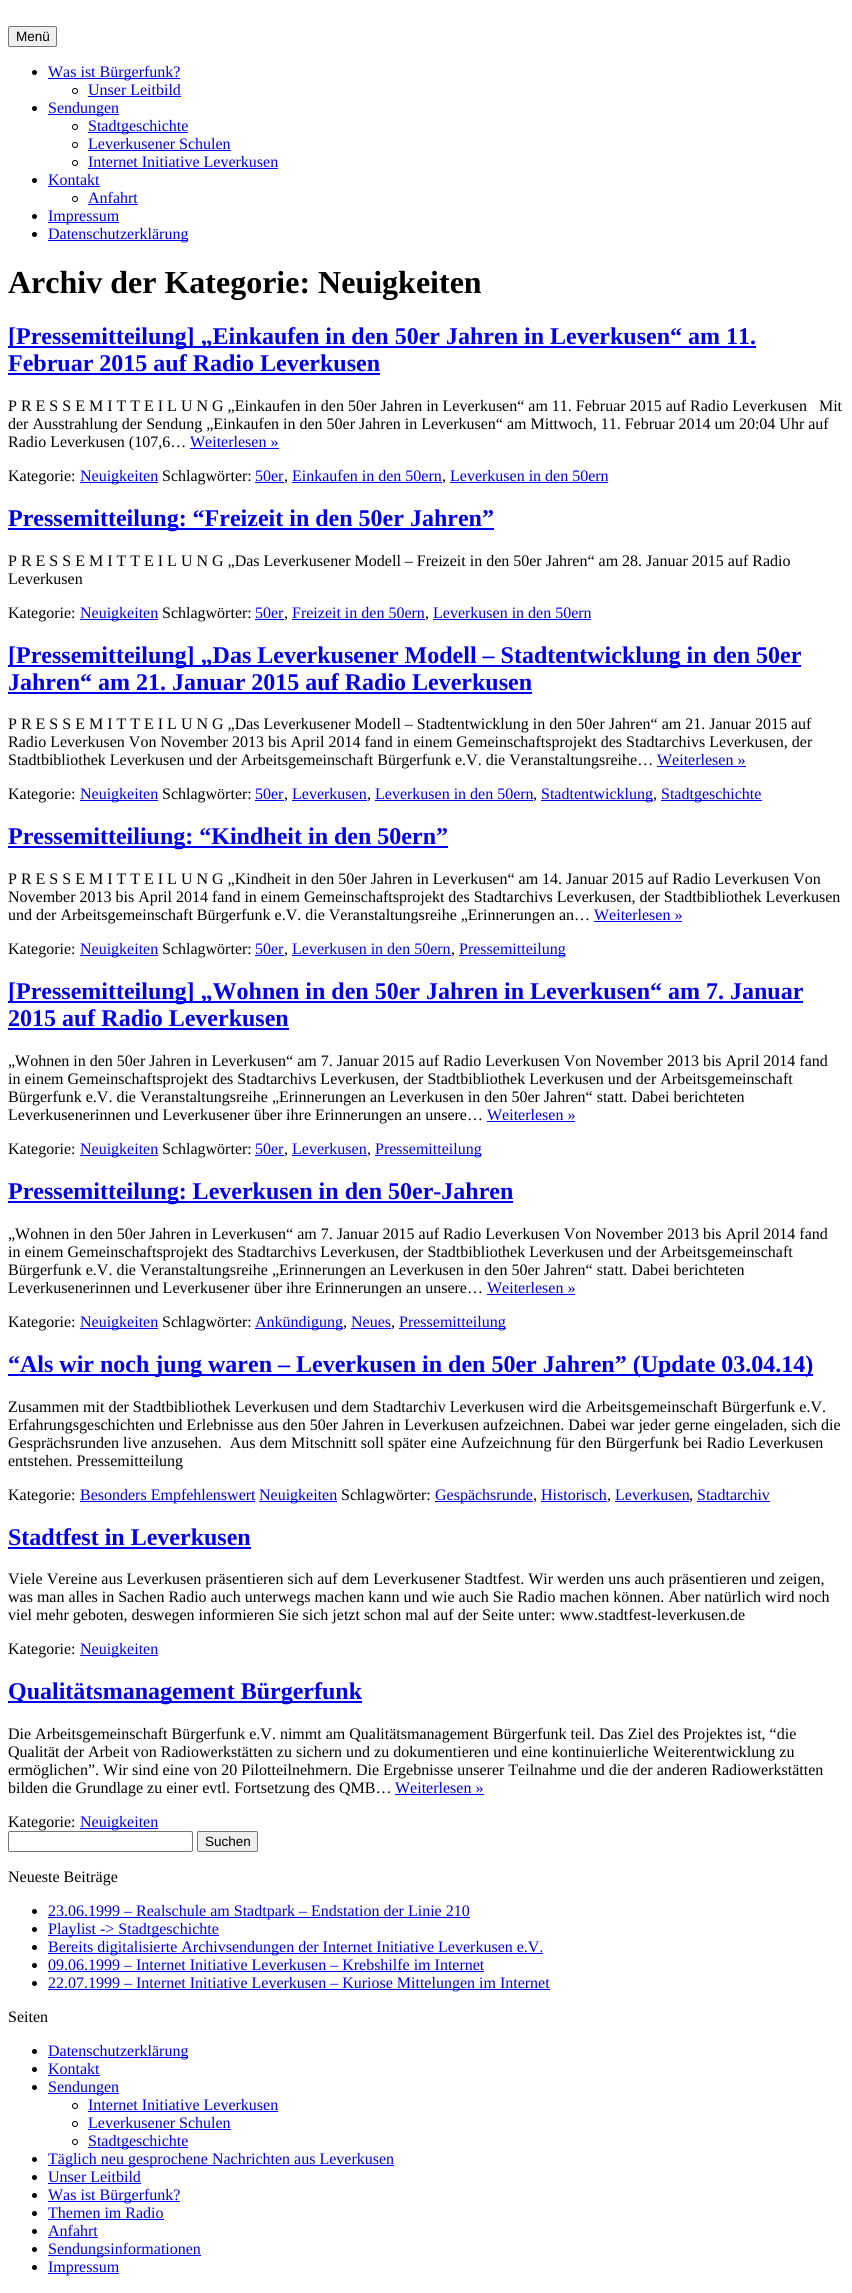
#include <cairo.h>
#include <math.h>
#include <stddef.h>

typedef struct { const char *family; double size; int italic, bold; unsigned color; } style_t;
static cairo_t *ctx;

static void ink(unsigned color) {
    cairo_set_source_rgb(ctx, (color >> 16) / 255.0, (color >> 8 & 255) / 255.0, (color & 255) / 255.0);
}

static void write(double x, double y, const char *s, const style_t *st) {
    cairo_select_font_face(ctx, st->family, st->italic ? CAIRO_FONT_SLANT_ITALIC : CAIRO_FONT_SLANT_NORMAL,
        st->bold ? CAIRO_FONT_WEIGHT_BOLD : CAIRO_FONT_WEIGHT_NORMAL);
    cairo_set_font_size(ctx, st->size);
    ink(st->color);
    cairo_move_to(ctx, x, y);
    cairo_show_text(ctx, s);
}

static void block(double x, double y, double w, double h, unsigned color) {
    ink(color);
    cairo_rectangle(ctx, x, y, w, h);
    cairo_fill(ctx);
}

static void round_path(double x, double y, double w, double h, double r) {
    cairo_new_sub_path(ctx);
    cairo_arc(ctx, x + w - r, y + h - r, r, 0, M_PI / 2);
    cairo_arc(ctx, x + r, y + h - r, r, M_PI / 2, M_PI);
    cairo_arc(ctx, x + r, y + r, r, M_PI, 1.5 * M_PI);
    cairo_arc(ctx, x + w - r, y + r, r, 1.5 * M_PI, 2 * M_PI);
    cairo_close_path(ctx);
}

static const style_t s1 = {"Liberation Sans", 13.5, 0, 0, 0x000000};
static const style_t s2 = {"Liberation Serif", 16, 0, 0, 0x0000ee};
static const style_t s3 = {"Liberation Serif", 32, 0, 1, 0x000000};
static const style_t s4 = {"Liberation Serif", 24, 0, 1, 0x0000ee};
static const style_t s5 = {"Liberation Serif", 16, 0, 0, 0x000000};

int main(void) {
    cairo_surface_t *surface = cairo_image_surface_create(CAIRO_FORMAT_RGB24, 852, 2293);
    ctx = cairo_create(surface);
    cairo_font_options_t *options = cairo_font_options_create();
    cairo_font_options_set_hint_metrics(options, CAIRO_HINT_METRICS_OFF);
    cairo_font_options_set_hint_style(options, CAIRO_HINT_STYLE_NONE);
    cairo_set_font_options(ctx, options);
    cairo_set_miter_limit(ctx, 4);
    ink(0xffffff);
    cairo_paint(ctx);
    ink(0xefefef);
    round_path(8.5, 26.5, 48, 20, 1.5);
    cairo_fill_preserve(ctx);
    ink(0x767676);
    cairo_set_line_width(ctx, 1);
    cairo_stroke(ctx);
    write(16, 41, "Menü", &s1);
    cairo_new_path(ctx);
    cairo_arc(ctx, 34.5, 72.5, 2.5, 0, 2 * M_PI);
    cairo_fill(ctx);
    block(48, 78, 132, 1, 0x0000ee);
    write(48, 77, "Was ist Bürgerfunk?", &s2);
    cairo_new_path(ctx);
    cairo_arc(ctx, 75, 91, 2.5, 0, 2 * M_PI);
    ink(0x000000);
    cairo_stroke(ctx);
    write(88, 95, "Unser Leitbild", &s2);
    block(88, 96, 93, 1, 0x0000ee);
    ink(0x000000);
    cairo_new_path(ctx);
    cairo_arc(ctx, 34.5, 108.5, 2.5, 0, 2 * M_PI);
    cairo_fill(ctx);
    block(48, 114, 71, 1, 0x0000ee);
    write(48, 113, "Sendungen", &s2);
    cairo_new_path(ctx);
    cairo_arc(ctx, 75, 127, 2.5, 0, 2 * M_PI);
    ink(0x000000);
    cairo_stroke(ctx);
    block(88, 132, 100, 1, 0x0000ee);
    write(88, 131, "Stadtgeschichte", &s2);
    cairo_new_path(ctx);
    cairo_arc(ctx, 75, 145, 2.5, 0, 2 * M_PI);
    ink(0x000000);
    cairo_stroke(ctx);
    write(88, 149, "Leverkusener Schulen", &s2);
    block(88, 150, 143, 1, 0x0000ee);
    cairo_new_path(ctx);
    cairo_arc(ctx, 75, 163, 2.5, 0, 2 * M_PI);
    ink(0x000000);
    cairo_stroke(ctx);
    write(88, 167, "Internet Initiative Leverkusen", &s2);
    block(88, 168, 190, 1, 0x0000ee);
    ink(0x000000);
    cairo_new_path(ctx);
    cairo_arc(ctx, 34.5, 180.5, 2.5, 0, 2 * M_PI);
    cairo_fill(ctx);
    write(48, 185, "Kontakt", &s2);
    block(48, 186, 52, 1, 0x0000ee);
    cairo_new_path(ctx);
    cairo_arc(ctx, 75, 199, 2.5, 0, 2 * M_PI);
    ink(0x000000);
    cairo_stroke(ctx);
    write(88, 203, "Anfahrt", &s2);
    block(88, 204, 50, 1, 0x0000ee);
    ink(0x000000);
    cairo_new_path(ctx);
    cairo_arc(ctx, 34.5, 216.5, 2.5, 0, 2 * M_PI);
    cairo_fill(ctx);
    block(48, 222, 71, 1, 0x0000ee);
    write(48, 221, "Impressum", &s2);
    ink(0x000000);
    cairo_new_path(ctx);
    cairo_arc(ctx, 34.5, 234.5, 2.5, 0, 2 * M_PI);
    cairo_fill(ctx);
    block(48, 240, 140, 1, 0x0000ee);
    write(48, 239, "Datenschutzerklärung", &s2);
    write(8, 293, "Archiv der Kategorie: Neuigkeiten", &s3);
    block(8, 346, 748, 2, 0x0000ee);
    write(8, 344, "[Pressemitteilung] „Einkaufen in den 50er Jahren in Leverkusen“ am 11.", &s4);
    write(8, 371, "Februar 2015 auf Radio Leverkusen", &s4);
    block(8, 373, 372, 2, 0x0000ee);
    write(8, 411, "P R E S S E M I T T E I L U N G „Einkaufen in den 50er Jahren in Leverkusen“ am 11. Februar 2015 auf Radio Leverkusen   Mit", &s5);
    write(8, 429, "der Ausstrahlung der Sendung „Einkaufen in den 50er Jahren in Leverkusen“ am Mittwoch, 11. Februar 2014 um 20:04 Uhr auf", &s5);
    write(8, 447, "Radio Leverkusen (107,6…", &s5);
    write(190, 447, "Weiterlesen »", &s2);
    block(190, 448, 89, 1, 0x0000ee);
    write(8, 481, "Kategorie:", &s5);
    block(80, 482, 78, 1, 0x0000ee);
    write(80, 481, "Neuigkeiten", &s2);
    write(162, 481, "Schlagwörter:", &s5);
    write(255, 481, "50er", &s2);
    write(284, 481, ",", &s5);
    block(255, 482, 29, 1, 0x0000ee);
    write(292, 481, "Einkaufen in den 50ern", &s2);
    write(442, 481, ",", &s5);
    block(292, 482, 150, 1, 0x0000ee);
    block(450, 482, 158, 1, 0x0000ee);
    write(450, 481, "Leverkusen in den 50ern", &s2);
    block(8, 528, 486, 2, 0x0000ee);
    write(8, 526, "Pressemitteilung: “Freizeit in den 50er Jahren”", &s4);
    write(8, 566, "P R E S S E M I T T E I L U N G „Das Leverkusener Modell – Freizeit in den 50er Jahren“ am 28. Januar 2015 auf Radio", &s5);
    write(8, 584, "Leverkusen", &s5);
    write(8, 618, "Kategorie:", &s5);
    block(80, 619, 78, 1, 0x0000ee);
    write(80, 618, "Neuigkeiten", &s2);
    write(162, 618, "Schlagwörter:", &s5);
    write(255, 618, "50er", &s2);
    write(284, 618, ",", &s5);
    block(255, 619, 29, 1, 0x0000ee);
    write(292, 618, "Freizeit in den 50ern", &s2);
    write(425, 618, ",", &s5);
    block(292, 619, 133, 1, 0x0000ee);
    block(433, 619, 158, 1, 0x0000ee);
    write(433, 618, "Leverkusen in den 50ern", &s2);
    block(8, 665, 793, 2, 0x0000ee);
    write(8, 663, "[Pressemitteilung] „Das Leverkusener Modell – Stadtentwicklung in den 50er", &s4);
    write(8, 690, "Jahren“ am 21. Januar 2015 auf Radio Leverkusen", &s4);
    block(8, 692, 524, 2, 0x0000ee);
    write(8, 729, "P R E S S E M I T T E I L U N G „Das Leverkusener Modell – Stadtentwicklung in den 50er Jahren“ am 21. Januar 2015 auf", &s5);
    write(8, 747, "Radio Leverkusen Von November 2013 bis April 2014 fand in einem Gemeinschaftsprojekt des Stadtarchivs Leverkusen, der", &s5);
    write(8, 765, "Stadtbibliothek Leverkusen und der Arbeitsgemeinschaft Bürgerfunk e.V. die Veranstaltungsreihe…", &s5);
    write(657, 765, "Weiterlesen »", &s2);
    block(657, 766, 89, 1, 0x0000ee);
    write(8, 799, "Kategorie:", &s5);
    block(80, 800, 78, 1, 0x0000ee);
    write(80, 799, "Neuigkeiten", &s2);
    write(162, 799, "Schlagwörter:", &s5);
    write(255, 799, "50er", &s2);
    write(284, 799, ",", &s5);
    block(255, 800, 29, 1, 0x0000ee);
    write(292, 799, "Leverkusen", &s2);
    write(367, 799, ",", &s5);
    block(292, 800, 75, 1, 0x0000ee);
    write(375, 799, "Leverkusen in den 50ern", &s2);
    write(533, 799, ",", &s5);
    block(375, 800, 158, 1, 0x0000ee);
    block(541, 800, 112, 1, 0x0000ee);
    write(541, 799, "Stadtentwicklung", &s2);
    write(653, 799, ",", &s5);
    block(661, 800, 101, 1, 0x0000ee);
    write(661, 799, "Stadtgeschichte", &s2);
    block(8, 846, 440, 2, 0x0000ee);
    write(8, 844, "Pressemitteiliung: “Kindheit in den 50ern”", &s4);
    write(8, 884, "P R E S S E M I T T E I L U N G „Kindheit in den 50er Jahren in Leverkusen“ am 14. Januar 2015 auf Radio Leverkusen Von", &s5);
    write(8, 902, "November 2013 bis April 2014 fand in einem Gemeinschaftsprojekt des Stadtarchivs Leverkusen, der Stadtbibliothek Leverkusen", &s5);
    write(8, 920, "und der Arbeitsgemeinschaft Bürgerfunk e.V. die Veranstaltungsreihe „Erinnerungen an…", &s5);
    write(594, 920, "Weiterlesen »", &s2);
    block(594, 921, 88, 1, 0x0000ee);
    write(8, 954, "Kategorie:", &s5);
    block(80, 955, 78, 1, 0x0000ee);
    write(80, 954, "Neuigkeiten", &s2);
    write(162, 954, "Schlagwörter:", &s5);
    write(255, 954, "50er", &s2);
    write(284, 954, ",", &s5);
    block(255, 955, 29, 1, 0x0000ee);
    write(292, 954, "Leverkusen in den 50ern", &s2);
    write(451, 954, ",", &s5);
    block(292, 955, 159, 1, 0x0000ee);
    block(459, 955, 106, 1, 0x0000ee);
    write(459, 954, "Pressemitteilung", &s2);
    block(8, 1001, 795, 2, 0x0000ee);
    write(8, 999, "[Pressemitteilung] „Wohnen in den 50er Jahren in Leverkusen“ am 7. Januar", &s4);
    write(8, 1026, "2015 auf Radio Leverkusen", &s4);
    block(8, 1028, 281, 2, 0x0000ee);
    write(8, 1066, "„Wohnen in den 50er Jahren in Leverkusen“ am 7. Januar 2015 auf Radio Leverkusen Von November 2013 bis April 2014 fand", &s5);
    write(8, 1084, "in einem Gemeinschaftsprojekt des Stadtarchivs Leverkusen, der Stadtbibliothek Leverkusen und der Arbeitsgemeinschaft", &s5);
    write(8, 1102, "Bürgerfunk e.V. die Veranstaltungsreihe „Erinnerungen an Leverkusen in den 50er Jahren“ statt. Dabei berichteten", &s5);
    write(8, 1120, "Leverkusenerinnen und Leverkusener über ihre Erinnerungen an unsere…", &s5);
    write(487, 1120, "Weiterlesen »", &s2);
    block(487, 1121, 88, 1, 0x0000ee);
    write(8, 1154, "Kategorie:", &s5);
    block(80, 1155, 78, 1, 0x0000ee);
    write(80, 1154, "Neuigkeiten", &s2);
    write(162, 1154, "Schlagwörter:", &s5);
    write(255, 1154, "50er", &s2);
    write(284, 1154, ",", &s5);
    block(255, 1155, 29, 1, 0x0000ee);
    write(292, 1154, "Leverkusen", &s2);
    write(367, 1154, ",", &s5);
    block(292, 1155, 75, 1, 0x0000ee);
    block(375, 1155, 106, 1, 0x0000ee);
    write(375, 1154, "Pressemitteilung", &s2);
    block(8, 1201, 505, 2, 0x0000ee);
    write(8, 1199, "Pressemitteilung: Leverkusen in den 50er-Jahren", &s4);
    write(8, 1239, "„Wohnen in den 50er Jahren in Leverkusen“ am 7. Januar 2015 auf Radio Leverkusen Von November 2013 bis April 2014 fand", &s5);
    write(8, 1257, "in einem Gemeinschaftsprojekt des Stadtarchivs Leverkusen, der Stadtbibliothek Leverkusen und der Arbeitsgemeinschaft", &s5);
    write(8, 1275, "Bürgerfunk e.V. die Veranstaltungsreihe „Erinnerungen an Leverkusen in den 50er Jahren“ statt. Dabei berichteten", &s5);
    write(8, 1293, "Leverkusenerinnen und Leverkusener über ihre Erinnerungen an unsere…", &s5);
    write(487, 1293, "Weiterlesen »", &s2);
    block(487, 1294, 88, 1, 0x0000ee);
    write(8, 1327, "Kategorie:", &s5);
    block(80, 1328, 78, 1, 0x0000ee);
    write(80, 1327, "Neuigkeiten", &s2);
    write(162, 1327, "Schlagwörter:", &s5);
    block(255, 1328, 88, 1, 0x0000ee);
    write(255, 1327, "Ankündigung", &s2);
    write(343, 1327, ",", &s5);
    write(351, 1327, "Neues", &s2);
    write(391, 1327, ",", &s5);
    block(351, 1328, 40, 1, 0x0000ee);
    block(399, 1328, 107, 1, 0x0000ee);
    write(399, 1327, "Pressemitteilung", &s2);
    block(8, 1374, 805, 2, 0x0000ee);
    write(8, 1372, "“Als wir noch jung waren – Leverkusen in den 50er Jahren” (Update 03.04.14)", &s4);
    write(8, 1412, "Zusammen mit der Stadtbibliothek Leverkusen und dem Stadtarchiv Leverkusen wird die Arbeitsgemeinschaft Bürgerfunk e.V.", &s5);
    write(8, 1430, "Erfahrungsgeschichten und Erlebnisse aus den 50er Jahren in Leverkusen aufzeichnen. Dabei war jeder gerne eingeladen, sich die", &s5);
    write(8, 1448, "Gesprächsrunden live anzusehen.  Aus dem Mitschnitt soll später eine Aufzeichnung für den Bürgerfunk bei Radio Leverkusen", &s5);
    write(8, 1466, "entstehen. Pressemitteilung", &s5);
    write(8, 1500, "Kategorie:", &s5);
    block(80, 1501, 175, 1, 0x0000ee);
    write(80, 1500, "Besonders Empfehlenswert", &s2);
    block(259, 1501, 78, 1, 0x0000ee);
    write(259, 1500, "Neuigkeiten", &s2);
    write(341, 1500, "Schlagwörter:", &s5);
    block(435, 1501, 98, 1, 0x0000ee);
    write(435, 1500, "Gespächsrunde", &s2);
    write(533, 1500, ",", &s5);
    write(541, 1500, "Historisch", &s2);
    write(607, 1500, ",", &s5);
    block(541, 1501, 66, 1, 0x0000ee);
    write(615, 1500, "Leverkusen", &s2);
    write(689, 1500, ",", &s5);
    block(615, 1501, 74, 1, 0x0000ee);
    block(697, 1501, 73, 1, 0x0000ee);
    write(697, 1500, "Stadtarchiv", &s2);
    write(8, 1545, "Stadtfest in Leverkusen", &s4);
    block(8, 1547, 243, 2, 0x0000ee);
    write(8, 1584, "Viele Vereine aus Leverkusen präsentieren sich auf dem Leverkusener Stadtfest. Wir werden uns auch präsentieren und zeigen,", &s5);
    write(8, 1602, "was man alles in Sachen Radio auch unterwegs machen kann und wie auch Sie Radio machen können. Aber natürlich wird noch", &s5);
    write(8, 1620, "viel mehr geboten, deswegen informieren Sie sich jetzt schon mal auf der Seite unter: www.stadtfest-leverkusen.de", &s5);
    write(8, 1654, "Kategorie:", &s5);
    block(80, 1655, 78, 1, 0x0000ee);
    write(80, 1654, "Neuigkeiten", &s2);
    block(8, 1701, 354, 2, 0x0000ee);
    write(8, 1699, "Qualitätsmanagement Bürgerfunk", &s4);
    write(8, 1739, "Die Arbeitsgemeinschaft Bürgerfunk e.V. nimmt am Qualitätsmanagement Bürgerfunk teil. Das Ziel des Projektes ist, “die", &s5);
    write(8, 1757, "Qualität der Arbeit von Radiowerkstätten zu sichern und zu dokumentieren und eine kontinuierliche Weiterentwicklung zu", &s5);
    write(8, 1775, "ermöglichen”. Wir sind eine von 20 Pilotteilnehmern. Die Ergebnisse unserer Teilnahme und die der anderen Radiowerkstätten", &s5);
    write(8, 1793, "bilden die Grundlage zu einer evtl. Fortsetzung des QMB…", &s5);
    write(395, 1793, "Weiterlesen »", &s2);
    block(395, 1794, 89, 1, 0x0000ee);
    write(8, 1827, "Kategorie:", &s5);
    block(80, 1828, 78, 1, 0x0000ee);
    write(80, 1827, "Neuigkeiten", &s2);
    round_path(8.5, 1831.5, 184, 20, 1.5);
    ink(0x767676);
    cairo_stroke(ctx);
    ink(0xefefef);
    round_path(197.5, 1831.5, 60, 20, 1.5);
    cairo_fill_preserve(ctx);
    ink(0x767676);
    cairo_stroke(ctx);
    write(205, 1846, "Suchen", &s1);
    write(8, 1882, "Neueste Beiträge", &s5);
    cairo_new_path(ctx);
    cairo_arc(ctx, 34.5, 1911.5, 2.5, 0, 2 * M_PI);
    cairo_fill(ctx);
    block(48, 1917, 422, 1, 0x0000ee);
    write(48, 1916, "23.06.1999 – Realschule am Stadtpark – Endstation der Linie 210", &s2);
    ink(0x000000);
    cairo_new_path(ctx);
    cairo_arc(ctx, 34.5, 1929.5, 2.5, 0, 2 * M_PI);
    cairo_fill(ctx);
    block(48, 1935, 171, 1, 0x0000ee);
    write(48, 1934, "Playlist -> Stadtgeschichte", &s2);
    ink(0x000000);
    cairo_new_path(ctx);
    cairo_arc(ctx, 34.5, 1947.5, 2.5, 0, 2 * M_PI);
    cairo_fill(ctx);
    block(48, 1953, 495, 1, 0x0000ee);
    write(48, 1952, "Bereits digitalisierte Archivsendungen der Internet Initiative Leverkusen e.V.", &s2);
    ink(0x000000);
    cairo_new_path(ctx);
    cairo_arc(ctx, 34.5, 1965.5, 2.5, 0, 2 * M_PI);
    cairo_fill(ctx);
    write(48, 1970, "09.06.1999 – Internet Initiative Leverkusen – Krebshilfe im Internet", &s2);
    block(48, 1971, 436, 1, 0x0000ee);
    ink(0x000000);
    cairo_new_path(ctx);
    cairo_arc(ctx, 34.5, 1983.5, 2.5, 0, 2 * M_PI);
    cairo_fill(ctx);
    block(48, 1989, 502, 1, 0x0000ee);
    write(48, 1988, "22.07.1999 – Internet Initiative Leverkusen – Kuriose Mittelungen im Internet", &s2);
    write(8, 2022, "Seiten", &s5);
    cairo_new_path(ctx);
    cairo_arc(ctx, 34.5, 2051.5, 2.5, 0, 2 * M_PI);
    cairo_fill(ctx);
    block(48, 2057, 140, 1, 0x0000ee);
    write(48, 2056, "Datenschutzerklärung", &s2);
    ink(0x000000);
    cairo_new_path(ctx);
    cairo_arc(ctx, 34.5, 2069.5, 2.5, 0, 2 * M_PI);
    cairo_fill(ctx);
    write(48, 2074, "Kontakt", &s2);
    block(48, 2075, 52, 1, 0x0000ee);
    ink(0x000000);
    cairo_new_path(ctx);
    cairo_arc(ctx, 34.5, 2087.5, 2.5, 0, 2 * M_PI);
    cairo_fill(ctx);
    block(48, 2093, 71, 1, 0x0000ee);
    write(48, 2092, "Sendungen", &s2);
    cairo_new_path(ctx);
    cairo_arc(ctx, 75, 2106, 2.5, 0, 2 * M_PI);
    ink(0x000000);
    cairo_stroke(ctx);
    write(88, 2110, "Internet Initiative Leverkusen", &s2);
    block(88, 2111, 190, 1, 0x0000ee);
    cairo_new_path(ctx);
    cairo_arc(ctx, 75, 2124, 2.5, 0, 2 * M_PI);
    ink(0x000000);
    cairo_stroke(ctx);
    write(88, 2128, "Leverkusener Schulen", &s2);
    block(88, 2129, 143, 1, 0x0000ee);
    cairo_new_path(ctx);
    cairo_arc(ctx, 75, 2142, 2.5, 0, 2 * M_PI);
    ink(0x000000);
    cairo_stroke(ctx);
    block(88, 2147, 100, 1, 0x0000ee);
    write(88, 2146, "Stadtgeschichte", &s2);
    ink(0x000000);
    cairo_new_path(ctx);
    cairo_arc(ctx, 34.5, 2159.5, 2.5, 0, 2 * M_PI);
    cairo_fill(ctx);
    block(48, 2165, 346, 1, 0x0000ee);
    write(48, 2164, "Täglich neu gesprochene Nachrichten aus Leverkusen", &s2);
    ink(0x000000);
    cairo_new_path(ctx);
    cairo_arc(ctx, 34.5, 2177.5, 2.5, 0, 2 * M_PI);
    cairo_fill(ctx);
    write(48, 2182, "Unser Leitbild", &s2);
    block(48, 2183, 93, 1, 0x0000ee);
    ink(0x000000);
    cairo_new_path(ctx);
    cairo_arc(ctx, 34.5, 2195.5, 2.5, 0, 2 * M_PI);
    cairo_fill(ctx);
    block(48, 2201, 132, 1, 0x0000ee);
    write(48, 2200, "Was ist Bürgerfunk?", &s2);
    ink(0x000000);
    cairo_new_path(ctx);
    cairo_arc(ctx, 34.5, 2213.5, 2.5, 0, 2 * M_PI);
    cairo_fill(ctx);
    write(48, 2218, "Themen im Radio", &s2);
    block(48, 2219, 116, 1, 0x0000ee);
    ink(0x000000);
    cairo_new_path(ctx);
    cairo_arc(ctx, 34.5, 2231.5, 2.5, 0, 2 * M_PI);
    cairo_fill(ctx);
    write(48, 2236, "Anfahrt", &s2);
    block(48, 2237, 50, 1, 0x0000ee);
    ink(0x000000);
    cairo_new_path(ctx);
    cairo_arc(ctx, 34.5, 2249.5, 2.5, 0, 2 * M_PI);
    cairo_fill(ctx);
    block(48, 2255, 153, 1, 0x0000ee);
    write(48, 2254, "Sendungsinformationen", &s2);
    ink(0x000000);
    cairo_new_path(ctx);
    cairo_arc(ctx, 34.5, 2267.5, 2.5, 0, 2 * M_PI);
    cairo_fill(ctx);
    block(48, 2273, 71, 1, 0x0000ee);
    write(48, 2272, "Impressum", &s2);
    cairo_surface_write_to_png(surface, "screenshot.png");
    cairo_font_options_destroy(options);
    cairo_destroy(ctx);
    cairo_surface_destroy(surface);
    return 0;
}
